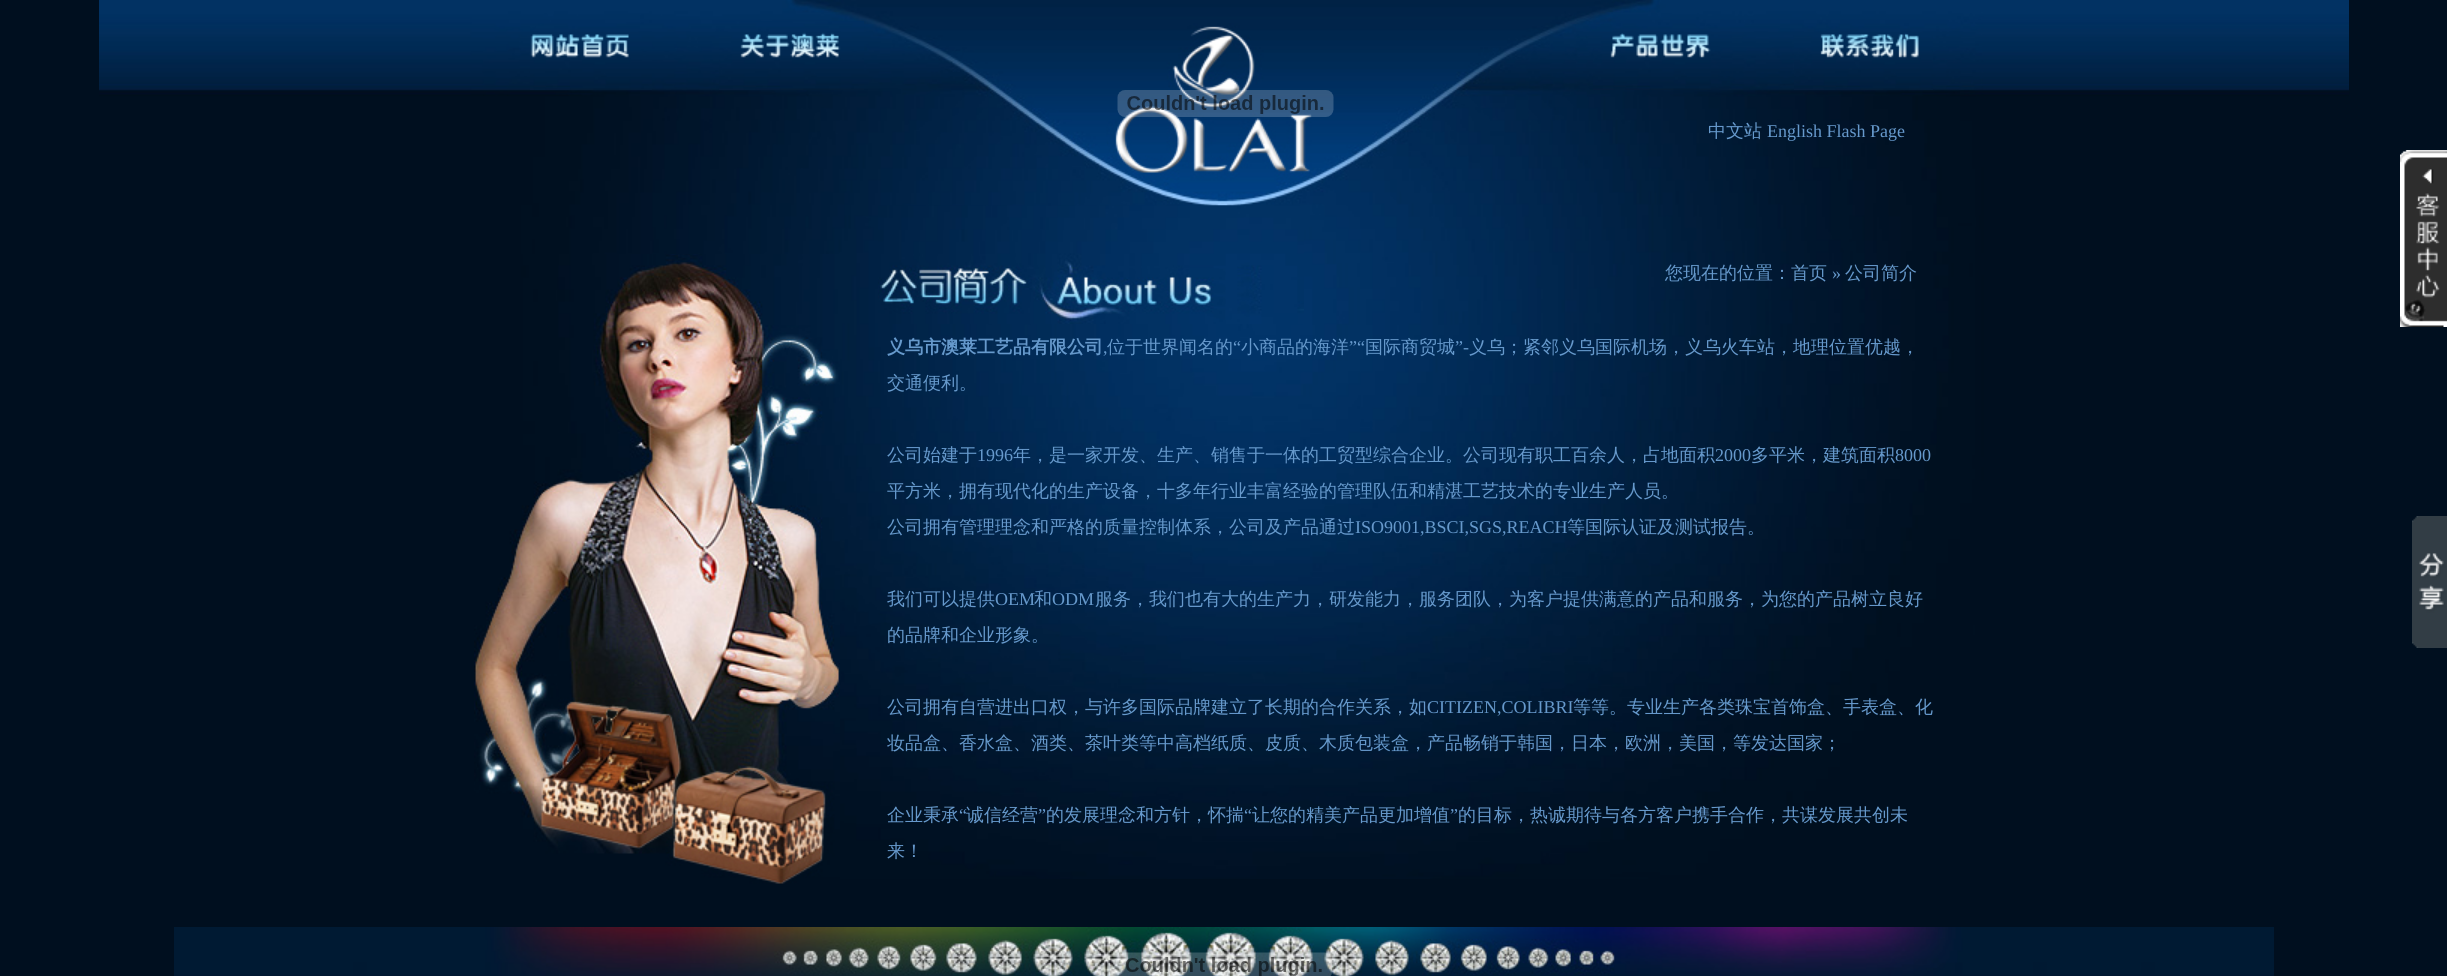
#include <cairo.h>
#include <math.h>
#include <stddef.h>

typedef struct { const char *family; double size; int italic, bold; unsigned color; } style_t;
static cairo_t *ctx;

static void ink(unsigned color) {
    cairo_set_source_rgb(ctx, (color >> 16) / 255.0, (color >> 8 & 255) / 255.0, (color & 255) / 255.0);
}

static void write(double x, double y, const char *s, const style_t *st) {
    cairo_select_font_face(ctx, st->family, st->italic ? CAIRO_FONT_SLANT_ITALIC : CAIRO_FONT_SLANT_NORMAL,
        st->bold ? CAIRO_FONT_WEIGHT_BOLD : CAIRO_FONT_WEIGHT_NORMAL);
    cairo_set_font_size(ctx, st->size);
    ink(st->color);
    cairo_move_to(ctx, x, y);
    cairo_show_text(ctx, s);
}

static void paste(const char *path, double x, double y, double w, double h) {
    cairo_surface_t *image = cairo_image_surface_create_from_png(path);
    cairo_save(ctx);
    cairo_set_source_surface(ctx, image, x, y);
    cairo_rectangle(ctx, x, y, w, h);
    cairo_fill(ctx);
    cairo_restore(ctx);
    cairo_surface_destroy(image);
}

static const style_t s1 = {"WenQuanYi Zen Hei Medium", 18, 0, 0, 0x6699cc};
static const style_t s2 = {"Liberation Serif", 18, 0, 0, 0x6699cc};
static const style_t s3 = {"WenQuanYi Zen Hei", 18, 0, 1, 0x6699cc};

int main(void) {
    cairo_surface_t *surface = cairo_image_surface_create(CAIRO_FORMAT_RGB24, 2447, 976);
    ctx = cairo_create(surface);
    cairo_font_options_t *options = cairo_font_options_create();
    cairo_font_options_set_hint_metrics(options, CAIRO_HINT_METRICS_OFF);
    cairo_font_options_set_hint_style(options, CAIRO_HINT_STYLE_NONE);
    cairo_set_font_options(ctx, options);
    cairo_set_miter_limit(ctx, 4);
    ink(0x000f1f);
    cairo_paint(ctx);
    paste("pic1.png", 99, 0, 2250, 879);
    paste("pic2.png", 530, 34, 122, 56);
    paste("pic3.png", 719, 21, 145, 69);
    paste("pic4.png", 1593, 33, 118, 57);
    paste("pic5.png", 1794, 33, 139, 57);
    paste("pic6.png", 1117, 90, 217, 27);
    write(1708, 137, "中文站", &s1);
    write(1767, 137, "English Flash Page", &s2);
    paste("pic7.png", 2400, 150, 47, 177);
    paste("pic8.png", 474, 254, 366, 630);
    paste("pic9.png", 878, 205, 426, 119);
    write(1665, 279, "您现在的位置：首页", &s1);
    write(1832, 279, "»", &s2);
    write(1845, 279, "公司简介", &s1);
    write(887, 353, "义乌市澳莱工艺品有限公司", &s3);
    write(1107, 353, "位于世界闻名的", &s1);
    write(1233, 353, "“", &s2);
    write(1241, 353, "小商品的海洋", &s1);
    write(1349, 353, "”“", &s2);
    write(1365, 353, "国际商贸城", &s1);
    write(1455, 353, "”-", &s2);
    write(1469, 353, "义乌；紧邻义乌国际机场，义乌火车站，地理位置优越，", &s1);
    write(1103, 353, ",", &s2);
    write(887, 389, "交通便利。", &s1);
    write(887, 461, "公司始建于", &s1);
    write(977, 461, "1996", &s2);
    write(1013, 461, "年，是一家开发、生产、销售于一体的工贸型综合企业。公司现有职工百余人，占地面积", &s1);
    write(1715, 461, "2000", &s2);
    write(1751, 461, "多平米，建筑面积", &s1);
    write(1895, 461, "8000", &s2);
    write(887, 497, "平方米，拥有现代化的生产设备，十多年行业丰富经验的管理队伍和精湛工艺技术的专业生产人员。", &s1);
    write(887, 533, "公司拥有管理理念和严格的质量控制体系，公司及产品通过", &s1);
    write(1355, 533, "ISO9001,BSCI,SGS,REACH", &s2);
    write(1567, 533, "等国际认证及测试报告。", &s1);
    write(887, 605, "我们可以提供", &s1);
    write(995, 605, "OEM", &s2);
    write(1034, 605, "和", &s1);
    write(1052, 605, "ODM", &s2);
    write(1095, 605, "服务，我们也有大的生产力，研发能力，服务团队，为客户提供满意的产品和服务，为您的产品树立良好", &s1);
    write(887, 641, "的品牌和企业形象。", &s1);
    write(887, 713, "公司拥有自营进出口权，与许多国际品牌建立了长期的合作关系，如", &s1);
    write(1427, 713, "CITIZEN,COLIBRI", &s2);
    write(1573, 713, "等等。专业生产各类珠宝首饰盒、手表盒、化", &s1);
    write(887, 749, "妆品盒、香水盒、酒类、茶叶类等中高档纸质、皮质、木质包装盒，产品畅销于韩国，日本，欧洲，美国，等发达国家；", &s1);
    write(887, 821, "企业秉承", &s1);
    write(959, 821, "“", &s2);
    write(966, 821, "诚信经营", &s1);
    write(1038, 821, "”", &s2);
    write(1046, 821, "的发展理念和方针，怀揣", &s1);
    write(1244, 821, "“", &s2);
    write(1252, 821, "让您的精美产品更加增值", &s1);
    write(1450, 821, "”", &s2);
    write(1458, 821, "的目标，热诚期待与各方客户携手合作，共谋发展共创未", &s1);
    write(887, 857, "来！", &s1);
    paste("pic10.png", 2412, 516, 35, 132);
    paste("pic11.png", 174, 927, 2100, 49);
    paste("pic12.png", 1116, 952, 216, 24);
    cairo_surface_write_to_png(surface, "screenshot.png");
    cairo_font_options_destroy(options);
    cairo_destroy(ctx);
    cairo_surface_destroy(surface);
    return 0;
}
